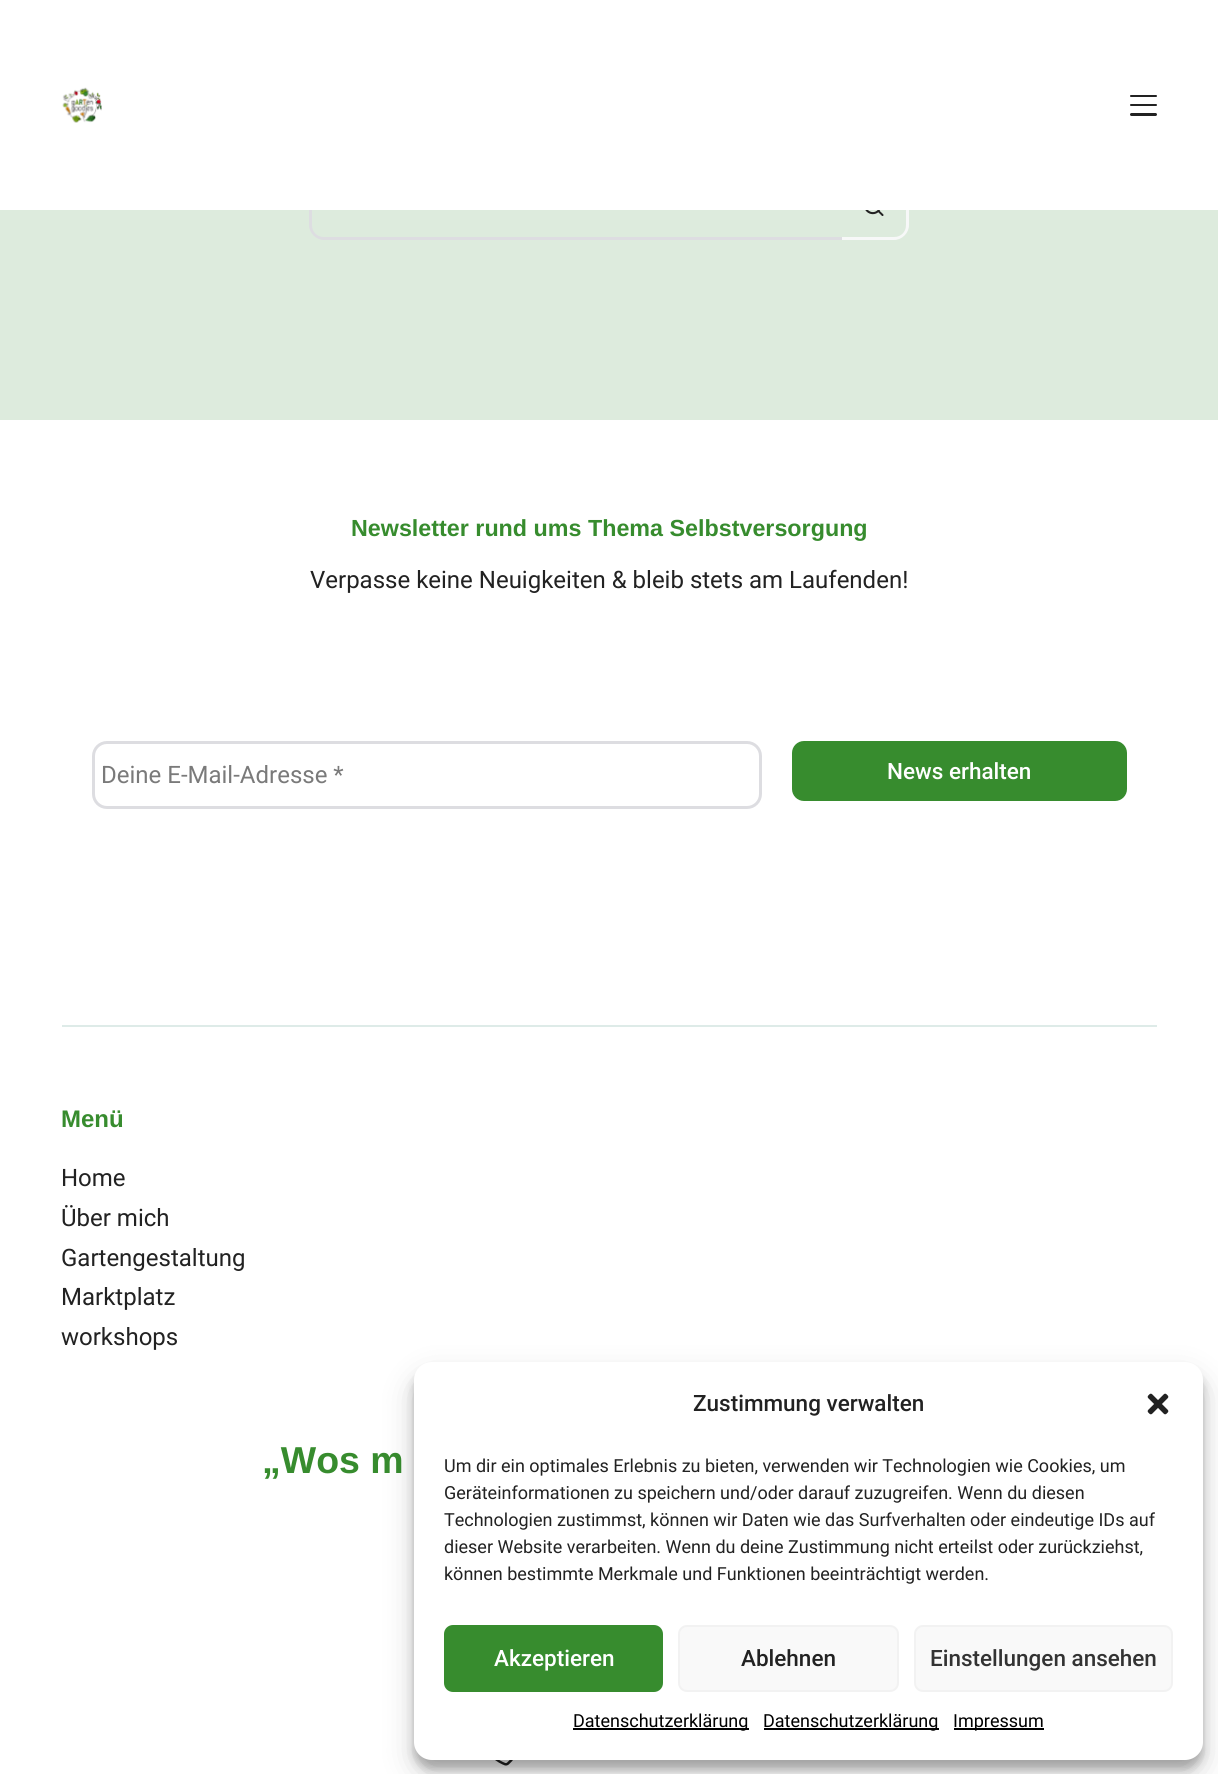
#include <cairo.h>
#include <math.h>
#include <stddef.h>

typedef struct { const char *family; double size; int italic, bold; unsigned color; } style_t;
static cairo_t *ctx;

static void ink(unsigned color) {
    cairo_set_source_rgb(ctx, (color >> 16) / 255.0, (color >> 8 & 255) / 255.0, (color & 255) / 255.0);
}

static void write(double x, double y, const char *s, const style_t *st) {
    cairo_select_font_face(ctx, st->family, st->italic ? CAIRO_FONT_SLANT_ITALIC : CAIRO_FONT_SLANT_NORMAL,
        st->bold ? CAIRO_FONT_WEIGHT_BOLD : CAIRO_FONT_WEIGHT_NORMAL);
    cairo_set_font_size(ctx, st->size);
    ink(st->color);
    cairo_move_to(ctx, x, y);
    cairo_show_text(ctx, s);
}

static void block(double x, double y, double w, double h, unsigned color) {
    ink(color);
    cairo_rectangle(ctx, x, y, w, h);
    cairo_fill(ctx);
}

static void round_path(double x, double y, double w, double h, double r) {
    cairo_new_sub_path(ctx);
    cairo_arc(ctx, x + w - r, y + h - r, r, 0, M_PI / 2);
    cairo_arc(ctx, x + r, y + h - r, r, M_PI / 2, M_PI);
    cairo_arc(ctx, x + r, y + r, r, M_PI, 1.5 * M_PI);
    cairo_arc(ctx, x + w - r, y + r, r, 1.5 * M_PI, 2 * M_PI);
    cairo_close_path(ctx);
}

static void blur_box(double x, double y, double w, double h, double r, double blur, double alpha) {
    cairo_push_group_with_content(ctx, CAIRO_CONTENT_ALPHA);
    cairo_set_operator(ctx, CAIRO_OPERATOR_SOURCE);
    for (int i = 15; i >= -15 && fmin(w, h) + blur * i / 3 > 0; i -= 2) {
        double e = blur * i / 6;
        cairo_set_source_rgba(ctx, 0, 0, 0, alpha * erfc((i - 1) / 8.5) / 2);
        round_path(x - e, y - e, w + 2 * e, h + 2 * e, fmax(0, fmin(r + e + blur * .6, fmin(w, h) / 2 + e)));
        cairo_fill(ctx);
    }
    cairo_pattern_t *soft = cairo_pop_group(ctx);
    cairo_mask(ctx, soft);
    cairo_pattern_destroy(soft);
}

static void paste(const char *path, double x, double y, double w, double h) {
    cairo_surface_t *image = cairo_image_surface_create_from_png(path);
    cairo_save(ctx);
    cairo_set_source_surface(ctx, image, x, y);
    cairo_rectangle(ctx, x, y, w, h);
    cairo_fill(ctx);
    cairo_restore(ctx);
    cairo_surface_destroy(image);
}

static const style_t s1 = {"Liberation Sans", 23.3, 0, 1, 0x378c2e};
static const style_t s2 = {"Roboto", 24, 0, 0, 0x222222};
static const style_t s3 = {"Roboto", 24, 0, 0, 0x7a7a7a};
static const style_t s4 = {"Roboto Medium", 22.5, 0, 0, 0xffffff};
static const style_t s5 = {"Liberation Sans", 24, 0, 1, 0x378c2e};
static const style_t s6 = {"Liberation Sans", 37.5, 0, 1, 0x378c2e};
static const style_t s7 = {"Roboto Medium", 22.5, 0, 0, 0x222222};
static const style_t s8 = {"Roboto", 18, 0, 0, 0x222222};
static const style_t s9 = {"Roboto Medium", 22.5, 0, 0, 0x333333};
static const style_t s10 = {"Roboto", 18, 0, 0, 0x000000};

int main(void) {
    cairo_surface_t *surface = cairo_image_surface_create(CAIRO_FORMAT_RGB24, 1218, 1774);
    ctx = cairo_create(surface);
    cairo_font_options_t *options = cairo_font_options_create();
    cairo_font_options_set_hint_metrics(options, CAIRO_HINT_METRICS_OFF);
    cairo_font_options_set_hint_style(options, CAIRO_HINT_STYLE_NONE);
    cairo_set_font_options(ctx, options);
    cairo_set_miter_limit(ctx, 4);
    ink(0xddebdd);
    cairo_paint(ctx);
    ink(0xdddde1);
    cairo_set_fill_rule(ctx, CAIRO_FILL_RULE_EVEN_ODD);
    cairo_new_path(ctx);
    cairo_move_to(ctx, 324, 172);
    cairo_line_to(ctx, 842, 172);
    cairo_line_to(ctx, 842, 240);
    cairo_line_to(ctx, 324, 240);
    cairo_curve_to(ctx, 316, 240, 309, 233, 309, 225);
    cairo_line_to(ctx, 309, 188);
    cairo_curve_to(ctx, 309, 179, 316, 172, 324, 172);
    cairo_close_path(ctx);
    cairo_move_to(ctx, 324, 176);
    cairo_line_to(ctx, 842, 176);
    cairo_line_to(ctx, 842, 237);
    cairo_line_to(ctx, 324, 237);
    cairo_curve_to(ctx, 317, 237, 312, 232, 312, 225);
    cairo_line_to(ctx, 312, 188);
    cairo_curve_to(ctx, 312, 181, 317, 176, 324, 176);
    cairo_close_path(ctx);
    cairo_fill(ctx);
    ink(0xf7f8f8);
    cairo_new_path(ctx);
    cairo_move_to(ctx, 842, 172);
    cairo_line_to(ctx, 894, 172);
    cairo_curve_to(ctx, 902, 172, 909, 179, 909, 188);
    cairo_line_to(ctx, 909, 225);
    cairo_curve_to(ctx, 909, 233, 902, 240, 894, 240);
    cairo_line_to(ctx, 842, 240);
    cairo_close_path(ctx);
    cairo_move_to(ctx, 842, 176);
    cairo_line_to(ctx, 894, 176);
    cairo_curve_to(ctx, 901, 176, 906, 181, 906, 188);
    cairo_line_to(ctx, 906, 225);
    cairo_curve_to(ctx, 906, 232, 901, 237, 894, 237);
    cairo_line_to(ctx, 842, 237);
    cairo_close_path(ctx);
    cairo_fill(ctx);
    block(0, 0, 1218, 210, 0xffffff);
    paste("pic1.png", 62, 87, 40, 36);
    ink(0x222222);
    round_path(1130, 95, 27, 2, 1);
    cairo_fill(ctx);
    round_path(1130, 104, 27, 2, 1);
    cairo_fill(ctx);
    round_path(1130, 113, 27, 3, 1.5);
    cairo_fill(ctx);
    paste("pic2.png", 865, 210, 19, 6);
    block(0, 420, 1218, 1354, 0xffffff);
    block(62, 1025, 1095, 2, 0xdeebe8);
    write(351, 536, "Newsletter rund ums Thema Selbstversorgung", &s1);
    write(310, 588, "Verpasse keine Neuigkeiten & bleib stets am Laufenden!", &s2);
    round_path(93.5, 742.5, 667, 65, 13.5);
    ink(0xdddde1);
    cairo_set_line_width(ctx, 3);
    cairo_stroke(ctx);
    write(101, 783, "Deine E-Mail-Adresse *", &s3);
    ink(0x378c2e);
    round_path(792, 741, 335, 60, 12);
    cairo_fill(ctx);
    write(887, 779, "News erhalten", &s4);
    write(61, 1127, "Menü", &s5);
    write(61, 1186, "Home", &s2);
    write(61, 1226, "Über mich", &s2);
    write(61, 1266, "Gartengestaltung", &s2);
    write(61, 1305, "Marktplatz", &s2);
    write(61, 1345, "workshops", &s2);
    write(262, 1473, "„Wos m", &s6);
    paste("pic3.png", 495, 1760, 18, 6);
    ink(0x000000);
    blur_box(414, 1371, 789, 398, 18, 4.5, 0.23);
    blur_box(414, 1377, 789, 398, 18, 15, 0.19);
    ink(0xffffff);
    round_path(414, 1362, 789, 398, 18);
    cairo_fill(ctx);
    write(693, 1411, "Zustimmung verwalten", &s7);
    paste("pic4.png", 1147, 1393, 22, 22);
    write(444, 1472, "Um dir ein optimales Erlebnis zu bieten, verwenden wir Technologien wie Cookies, um", &s8);
    write(444, 1499, "Geräteinformationen zu speichern und/oder darauf zuzugreifen. Wenn du diesen", &s8);
    write(444, 1526, "Technologien zustimmst, können wir Daten wie das Surfverhalten oder eindeutige IDs auf", &s8);
    write(444, 1553, "dieser Website verarbeiten. Wenn du deine Zustimmung nicht erteilst oder zurückziehst,", &s8);
    write(444, 1580, "können bestimmte Merkmale und Funktionen beeinträchtigt werden.", &s8);
    ink(0x378c2e);
    round_path(445, 1626, 217, 65, 8);
    cairo_fill_preserve(ctx);
    cairo_set_line_width(ctx, 2);
    cairo_stroke(ctx);
    write(494, 1666, "Akzeptieren", &s4);
    ink(0xf9f9f9);
    round_path(679, 1626, 219, 65, 8);
    cairo_fill_preserve(ctx);
    ink(0xf2f2f2);
    cairo_stroke(ctx);
    write(741, 1666, "Ablehnen", &s7);
    ink(0xf9f9f9);
    round_path(915, 1626, 257, 65, 8);
    cairo_fill_preserve(ctx);
    ink(0xf2f2f2);
    cairo_stroke(ctx);
    write(930, 1666, "Einstellungen ansehen", &s9);
    block(573, 1728, 176, 2, 0x000000);
    write(573, 1727, "Datenschutzerklärung", &s10);
    block(764, 1728, 175, 2, 0x000000);
    write(763, 1727, "Datenschutzerklärung", &s10);
    block(954, 1728, 90, 2, 0x000000);
    write(953, 1727, "Impressum", &s10);
    cairo_surface_write_to_png(surface, "screenshot.png");
    cairo_font_options_destroy(options);
    cairo_destroy(ctx);
    cairo_surface_destroy(surface);
    return 0;
}
